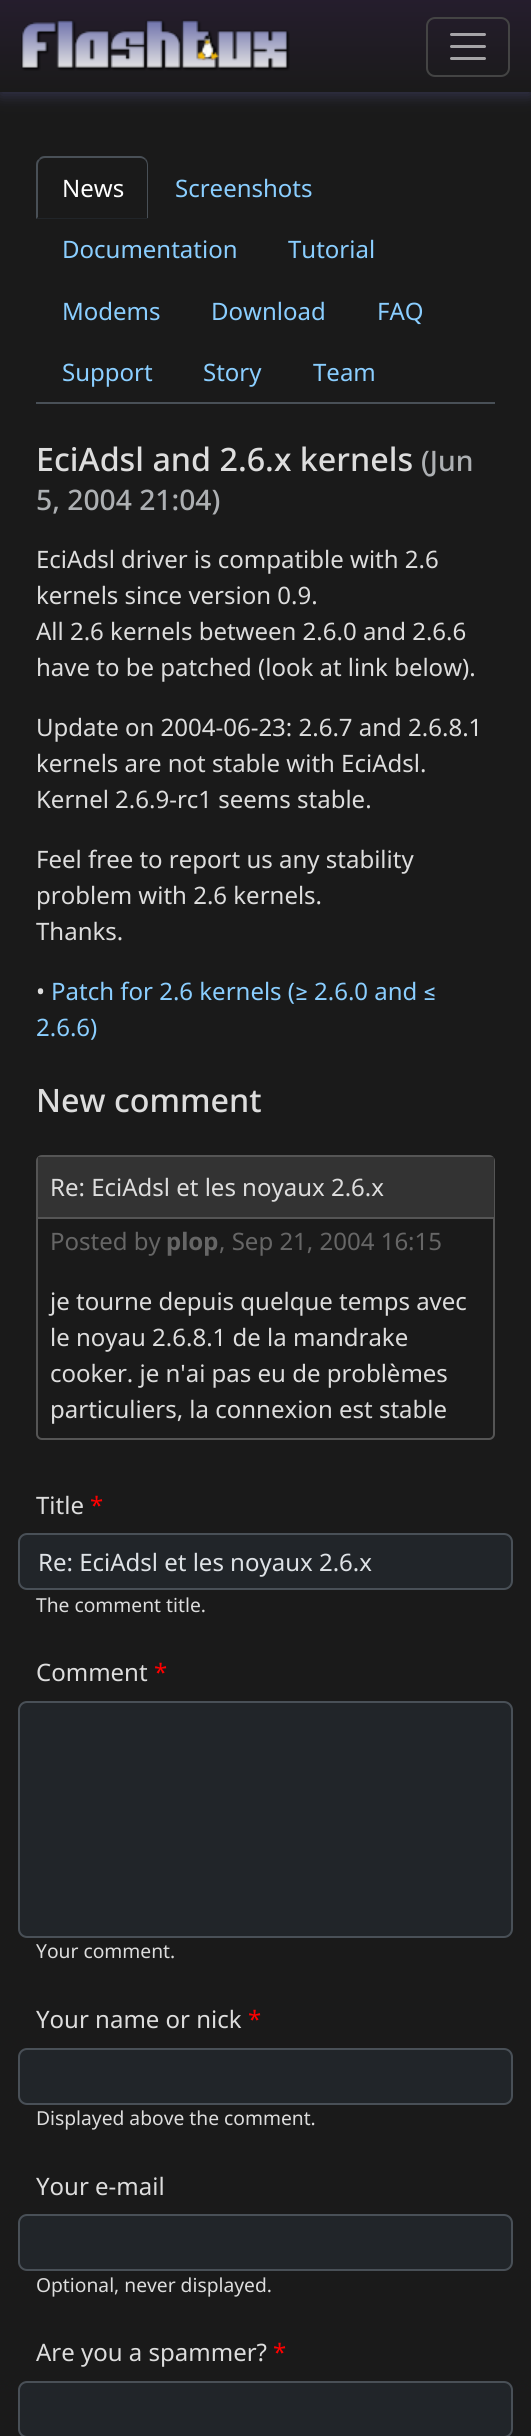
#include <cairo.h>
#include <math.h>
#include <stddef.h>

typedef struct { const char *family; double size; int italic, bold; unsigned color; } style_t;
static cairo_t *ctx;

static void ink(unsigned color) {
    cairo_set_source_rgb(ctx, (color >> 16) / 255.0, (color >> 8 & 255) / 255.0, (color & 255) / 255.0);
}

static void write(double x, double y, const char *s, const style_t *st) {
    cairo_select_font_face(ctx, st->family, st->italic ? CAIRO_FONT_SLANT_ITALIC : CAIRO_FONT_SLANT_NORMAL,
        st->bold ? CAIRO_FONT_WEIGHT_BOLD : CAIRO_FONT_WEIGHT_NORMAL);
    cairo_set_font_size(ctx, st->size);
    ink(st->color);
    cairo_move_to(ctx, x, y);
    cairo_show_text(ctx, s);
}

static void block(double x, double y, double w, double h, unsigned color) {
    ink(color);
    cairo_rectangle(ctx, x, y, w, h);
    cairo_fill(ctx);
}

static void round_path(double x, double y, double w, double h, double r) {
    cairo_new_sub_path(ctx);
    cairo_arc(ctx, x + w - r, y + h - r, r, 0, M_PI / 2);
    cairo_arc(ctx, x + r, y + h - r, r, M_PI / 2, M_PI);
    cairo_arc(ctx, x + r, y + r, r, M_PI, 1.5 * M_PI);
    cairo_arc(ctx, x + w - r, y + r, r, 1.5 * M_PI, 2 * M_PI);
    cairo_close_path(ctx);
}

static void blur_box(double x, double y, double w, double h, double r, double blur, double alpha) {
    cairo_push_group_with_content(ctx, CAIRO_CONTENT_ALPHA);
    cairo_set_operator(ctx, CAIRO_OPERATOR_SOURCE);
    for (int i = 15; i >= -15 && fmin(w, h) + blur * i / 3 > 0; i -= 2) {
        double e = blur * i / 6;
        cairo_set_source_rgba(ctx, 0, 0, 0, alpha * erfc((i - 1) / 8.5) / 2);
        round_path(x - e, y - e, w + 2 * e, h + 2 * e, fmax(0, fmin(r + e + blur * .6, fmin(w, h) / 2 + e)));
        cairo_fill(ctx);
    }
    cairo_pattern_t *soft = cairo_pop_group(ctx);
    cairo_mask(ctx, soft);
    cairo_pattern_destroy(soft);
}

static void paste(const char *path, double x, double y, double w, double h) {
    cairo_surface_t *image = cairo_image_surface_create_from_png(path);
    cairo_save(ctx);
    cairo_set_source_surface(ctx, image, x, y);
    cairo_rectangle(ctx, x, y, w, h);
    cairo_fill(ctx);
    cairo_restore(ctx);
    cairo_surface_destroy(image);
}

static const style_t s1 = {"Noto Sans", 24, 0, 0, 0xffffff};
static const style_t s2 = {"Noto Sans", 24, 0, 0, 0x8aceff};
static const style_t s3 = {"Noto Sans Medium", 32.25, 0, 0, 0xdddddd};
static const style_t s4 = {"Noto Sans Medium", 28.25, 0, 0, 0xadb0b3};
static const style_t s5 = {"Noto Sans", 24, 0, 0, 0xdddddd};
static const style_t s6 = {"Roboto", 24, 0, 0, 0x8aceff};
static const style_t s7 = {"Noto Sans", 24, 0, 0, 0x666666};
static const style_t s8 = {"Noto Sans", 24, 0, 1, 0x666666};
static const style_t s9 = {"Noto Sans", 24, 0, 0, 0xff0000};
static const style_t s10 = {"Noto Sans", 24, 0, 0, 0xdee2e6};
static const style_t s11 = {"Noto Sans", 19.25, 0, 0, 0xdddddd};

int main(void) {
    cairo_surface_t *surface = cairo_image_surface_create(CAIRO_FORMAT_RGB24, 531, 2436);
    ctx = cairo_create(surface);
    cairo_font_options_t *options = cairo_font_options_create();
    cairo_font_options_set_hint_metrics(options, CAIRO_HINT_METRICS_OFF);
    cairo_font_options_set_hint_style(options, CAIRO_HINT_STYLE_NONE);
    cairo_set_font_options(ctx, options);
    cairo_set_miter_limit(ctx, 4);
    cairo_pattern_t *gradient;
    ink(0x1a1a1a);
    cairo_paint(ctx);
    ink(0x505082);
    blur_box(0, 3, 531, 92, 0, 7.5, 0.5);
    gradient = cairo_pattern_create_linear(266, 0, 266, 92);
    cairo_pattern_add_color_stop_rgba(gradient, 0, 0.145, 0.114, 0.176, 1);
    cairo_pattern_add_color_stop_rgba(gradient, 1, 0.102, 0.102, 0.102, 1);
    cairo_set_source(ctx, gradient);
    cairo_pattern_destroy(gradient);
    cairo_rectangle(ctx, 0, 0, 531, 92);
    cairo_fill(ctx);
    paste("pic1.png", 21, 19, 269, 52);
    round_path(427, 18, 82, 58, 8);
    ink(0x444444);
    cairo_stroke(ctx);
    cairo_new_path(ctx);
    cairo_move_to(ctx, 451.5, 34.5);
    cairo_line_to(ctx, 484.5, 34.5);
    cairo_move_to(ctx, 451.5, 46.5);
    cairo_line_to(ctx, 484.5, 46.5);
    cairo_move_to(ctx, 451.5, 58.5);
    cairo_line_to(ctx, 484.5, 58.5);
    cairo_set_source_rgba(ctx, 1, 1, 1, 0.6);
    cairo_set_line_width(ctx, 3);
    cairo_set_line_cap(ctx, CAIRO_LINE_CAP_ROUND);
    cairo_stroke(ctx);
    block(36, 402, 459, 2, 0x495057);
    cairo_new_path(ctx);
    cairo_move_to(ctx, 45, 156);
    cairo_curve_to(ctx, 42, 156, 40, 157, 39, 159);
    cairo_line_to(ctx, 40, 160);
    cairo_curve_to(ctx, 41, 159, 43, 158, 45, 158);
    cairo_line_to(ctx, 140, 158);
    cairo_curve_to(ctx, 142, 158, 144, 159, 145, 160);
    cairo_line_to(ctx, 146, 159);
    cairo_curve_to(ctx, 144, 157, 142, 156, 140, 156);
    cairo_close_path(ctx);
    cairo_fill(ctx);
    cairo_new_path(ctx);
    cairo_move_to(ctx, 146, 159);
    cairo_curve_to(ctx, 147, 160, 148, 163, 148, 165);
    cairo_line_to(ctx, 148, 218);
    cairo_line_to(ctx, 147, 218);
    cairo_line_to(ctx, 147, 165);
    cairo_curve_to(ctx, 147, 163, 146, 161, 145, 160);
    cairo_close_path(ctx);
    cairo_fill(ctx);
    ink(0x212529);
    cairo_new_path(ctx);
    cairo_move_to(ctx, 148, 219);
    cairo_line_to(ctx, 147, 218);
    cairo_line_to(ctx, 38, 218);
    cairo_line_to(ctx, 38, 217);
    cairo_line_to(ctx, 36, 219);
    cairo_close_path(ctx);
    cairo_fill(ctx);
    ink(0x495057);
    cairo_new_path(ctx);
    cairo_move_to(ctx, 36, 219);
    cairo_line_to(ctx, 38, 217);
    cairo_line_to(ctx, 38, 165);
    cairo_curve_to(ctx, 38, 163, 39, 161, 40, 160);
    cairo_line_to(ctx, 39, 159);
    cairo_curve_to(ctx, 37, 160, 36, 162, 36, 165);
    cairo_close_path(ctx);
    cairo_fill(ctx);
    write(62, 197, "News", &s1);
    write(175, 197, "Screenshots", &s2);
    write(62, 258, "Documentation", &s2);
    write(288, 258, "Tutorial", &s2);
    write(62, 320, "Modems", &s2);
    write(211, 320, "Download", &s2);
    write(377, 320, "FAQ", &s2);
    write(62, 381, "Support", &s2);
    write(203, 381, "Story", &s2);
    write(313, 381, "Team", &s2);
    write(36, 471, "EciAdsl and 2.6.x kernels", &s3);
    write(421, 471, "(Jun", &s4);
    write(36, 510, "5, 2004 21:04)", &s4);
    write(36, 568, "EciAdsl driver is compatible with 2.6", &s5);
    write(36, 604, "kernels since version 0.9.", &s5);
    write(36, 640, "All 2.6 kernels between 2.6.0 and 2.6.6", &s5);
    write(36, 676, "have to be patched (look at link below).", &s5);
    write(36, 736, "Update on 2004-06-23: 2.6.7 and 2.6.8.1", &s5);
    write(36, 772, "kernels are not stable with EciAdsl.", &s5);
    write(36, 808, "Kernel 2.6.9-rc1 seems stable.", &s5);
    write(36, 868, "Feel free to report us any stability", &s5);
    write(36, 904, "problem with 2.6 kernels.", &s5);
    write(36, 940, "Thanks.", &s5);
    write(36, 1000, "•", &s5);
    write(51, 1000, "Patch for 2.6 kernels (", &s2);
    write(295, 1000, "≥", &s6);
    write(314, 1000, "2.6.0 and", &s2);
    write(424, 1000, "≤", &s6);
    write(36, 1036, "2.6.6)", &s2);
    write(36, 1112, "New comment", &s3);
    round_path(37, 1156, 457, 283, 5);
    ink(0x555555);
    cairo_set_line_width(ctx, 2);
    cairo_set_line_cap(ctx, CAIRO_LINE_CAP_BUTT);
    cairo_stroke(ctx);
    block(38, 1157, 456, 60, 0x333333);
    block(38, 1217, 456, 2, 0x555555);
    write(50, 1196, "Re: EciAdsl et les noyaux 2.6.x", &s5);
    write(50, 1250, "Posted by", &s7);
    write(166, 1250, "plop", &s8);
    write(219, 1250, ", Sep 21, 2004 16:15", &s7);
    write(50, 1310, "je tourne depuis quelque temps avec", &s5);
    write(50, 1346, "le noyau 2.6.8.1 de la mandrake", &s5);
    write(50, 1382, "cooker. je n'ai pas eu de problèmes", &s5);
    write(50, 1418, "particuliers, la connexion est stable", &s5);
    write(36, 1514, "Title", &s5);
    write(90, 1514, "*", &s9);
    ink(0x212529);
    round_path(19, 1534, 493, 55, 8);
    cairo_fill_preserve(ctx);
    ink(0x495057);
    cairo_stroke(ctx);
    write(38, 1571, "Re: EciAdsl et les noyaux 2.6.x", &s10);
    write(36, 1612, "The comment title.", &s11);
    write(36, 1681, "Comment", &s5);
    write(154, 1681, "*", &s9);
    ink(0x212529);
    round_path(19, 1702, 493, 235, 8);
    cairo_fill_preserve(ctx);
    ink(0x495057);
    cairo_stroke(ctx);
    write(36, 1958, "Your comment.", &s11);
    write(36, 2028, "Your name or nick", &s5);
    write(248, 2028, "*", &s9);
    ink(0x212529);
    round_path(19, 2049, 493, 55, 8);
    cairo_fill_preserve(ctx);
    ink(0x495057);
    cairo_stroke(ctx);
    write(36, 2125, "Displayed above the comment.", &s11);
    write(36, 2195, "Your e-mail", &s5);
    ink(0x212529);
    round_path(19, 2215, 493, 55, 8);
    cairo_fill_preserve(ctx);
    ink(0x495057);
    cairo_stroke(ctx);
    write(36, 2292, "Optional, never displayed.", &s11);
    write(36, 2361, "Are you a spammer?", &s5);
    write(273, 2361, "*", &s9);
    ink(0x212529);
    round_path(19, 2382, 493, 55, 8);
    cairo_fill_preserve(ctx);
    ink(0x495057);
    cairo_stroke(ctx);
    cairo_surface_write_to_png(surface, "screenshot.png");
    cairo_font_options_destroy(options);
    cairo_destroy(ctx);
    cairo_surface_destroy(surface);
    return 0;
}
